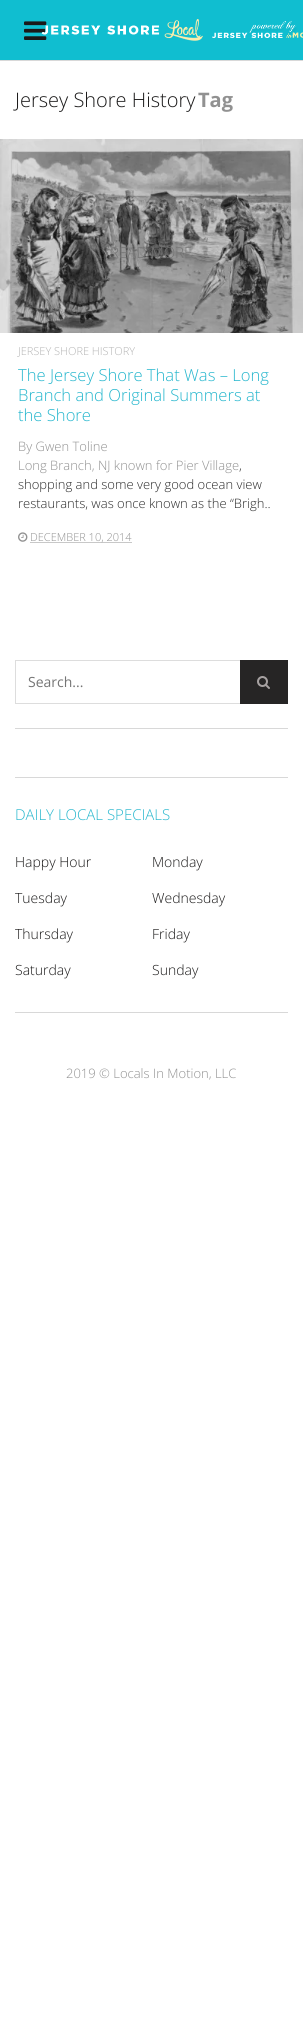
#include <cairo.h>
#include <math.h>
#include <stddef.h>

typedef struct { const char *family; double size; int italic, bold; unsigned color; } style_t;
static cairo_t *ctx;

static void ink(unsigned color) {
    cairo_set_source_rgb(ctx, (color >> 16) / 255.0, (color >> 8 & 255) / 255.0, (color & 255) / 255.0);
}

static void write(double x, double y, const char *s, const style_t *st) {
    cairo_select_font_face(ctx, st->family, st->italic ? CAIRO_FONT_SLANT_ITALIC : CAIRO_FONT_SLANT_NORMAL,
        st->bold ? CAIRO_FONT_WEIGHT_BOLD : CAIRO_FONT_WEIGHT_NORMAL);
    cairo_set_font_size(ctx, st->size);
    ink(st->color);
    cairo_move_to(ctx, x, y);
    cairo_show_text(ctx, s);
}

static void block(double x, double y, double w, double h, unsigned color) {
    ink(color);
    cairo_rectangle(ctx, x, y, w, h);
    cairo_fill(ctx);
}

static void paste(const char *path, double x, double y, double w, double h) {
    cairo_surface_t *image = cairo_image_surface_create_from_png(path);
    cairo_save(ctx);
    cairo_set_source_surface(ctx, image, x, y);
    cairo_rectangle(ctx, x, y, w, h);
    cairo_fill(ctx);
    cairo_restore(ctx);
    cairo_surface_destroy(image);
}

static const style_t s1 = {"Open Sans Light", 20, 0, 0, 0x1a1919};
static const style_t s2 = {"Open Sans", 20, 0, 1, 0x919191};
static const style_t s3 = {"Open Sans Light", 15, 0, 0, 0x757575};
static const style_t s4 = {"Open Sans Light", 11, 0, 0, 0xb3b3b3};
static const style_t s5 = {"Open Sans Light", 16.6, 0, 0, 0x25b6cd};
static const style_t s6 = {"Open Sans Light", 13, 0, 0, 0x919191};
static const style_t s7 = {"Open Sans Light", 13, 0, 0, 0x2b2b2b};
static const style_t s8 = {"Open Sans Light", 11, 0, 0, 0x919191};
static const style_t s9 = {"Open Sans", 14, 0, 0, 0x757575};
static const style_t s10 = {"Open Sans Light", 15, 0, 0, 0x25b6cd};
static const style_t s11 = {"Open Sans Light", 14, 0, 0, 0x1a1919};

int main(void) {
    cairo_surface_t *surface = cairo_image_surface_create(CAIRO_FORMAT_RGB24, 303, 2035);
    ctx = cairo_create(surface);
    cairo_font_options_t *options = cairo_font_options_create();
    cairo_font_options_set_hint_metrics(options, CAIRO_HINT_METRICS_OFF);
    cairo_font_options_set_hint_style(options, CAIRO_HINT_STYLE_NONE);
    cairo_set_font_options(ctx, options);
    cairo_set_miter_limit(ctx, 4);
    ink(0xffffff);
    cairo_paint(ctx);
    block(0, 60, 303, 1, 0xd8d8d8);
    block(0, 0, 303, 60, 0x10bed0);
    paste("pic1.png", 24, 21, 23, 19);
    paste("pic2.png", 41, 19, 262, 22);
    block(15, 1012, 273, 1, 0xd8d8d8);
    write(15, 107, "Jersey Shore History", &s1);
    write(198, 107, "Tag", &s2);
    paste("pic3.png", 0, 139, 303, 194);
    write(110, 258, "READ MORE", &s3);
    write(18, 355, "JERSEY SHORE HISTORY", &s4);
    write(18, 381, "The Jersey Shore That Was – Long", &s5);
    write(18, 401, "Branch and Original Summers at", &s5);
    write(18, 421, "the Shore", &s5);
    write(18, 451, "By Gwen Toline", &s6);
    write(18, 470, "Long Branch, NJ known for Pier Village", &s6);
    write(239, 470, ",", &s7);
    write(18, 489, "shopping and some very good ocean view", &s7);
    write(18, 508, "restaurants, was once known as the “Brigh..", &s7);
    paste("pic4.png", 18, 532, 10, 10);
    cairo_new_path(ctx);
    cairo_move_to(ctx, 30.5, 542.5);
    cairo_line_to(ctx, 132, 542.5);
    ink(0x919191);
    cairo_set_line_width(ctx, 1);
    cairo_set_dash(ctx, (double[]){1, 1}, 2, 0);
    cairo_stroke(ctx);
    write(30, 541, "DECEMBER 10, 2014", &s8);
    block(15, 728, 273, 1, 0xd8d8d8);
    cairo_rectangle(ctx, 15.5, 660.5, 272, 43);
    ink(0xdddddd);
    cairo_set_dash(ctx, NULL, 0, 0);
    cairo_stroke(ctx);
    write(28, 687, "Search...", &s9);
    block(240, 660, 48, 44, 0x262525);
    paste("pic5.png", 257, 676, 13, 13);
    block(15, 777, 273, 1, 0xd8d8d8);
    write(15, 820, "DAILY LOCAL SPECIALS", &s10);
    write(15, 867, "Happy Hour", &s11);
    write(152, 867, "Monday", &s11);
    write(15, 903, "Tuesday", &s11);
    write(152, 903, "Wednesday", &s11);
    write(15, 939, "Thursday", &s11);
    write(152, 939, "Friday", &s11);
    write(15, 975, "Saturday", &s11);
    write(152, 975, "Sunday", &s11);
    write(66, 1078, "2019 © Locals In Motion, LLC", &s6);
    cairo_surface_write_to_png(surface, "screenshot.png");
    cairo_font_options_destroy(options);
    cairo_destroy(ctx);
    cairo_surface_destroy(surface);
    return 0;
}
